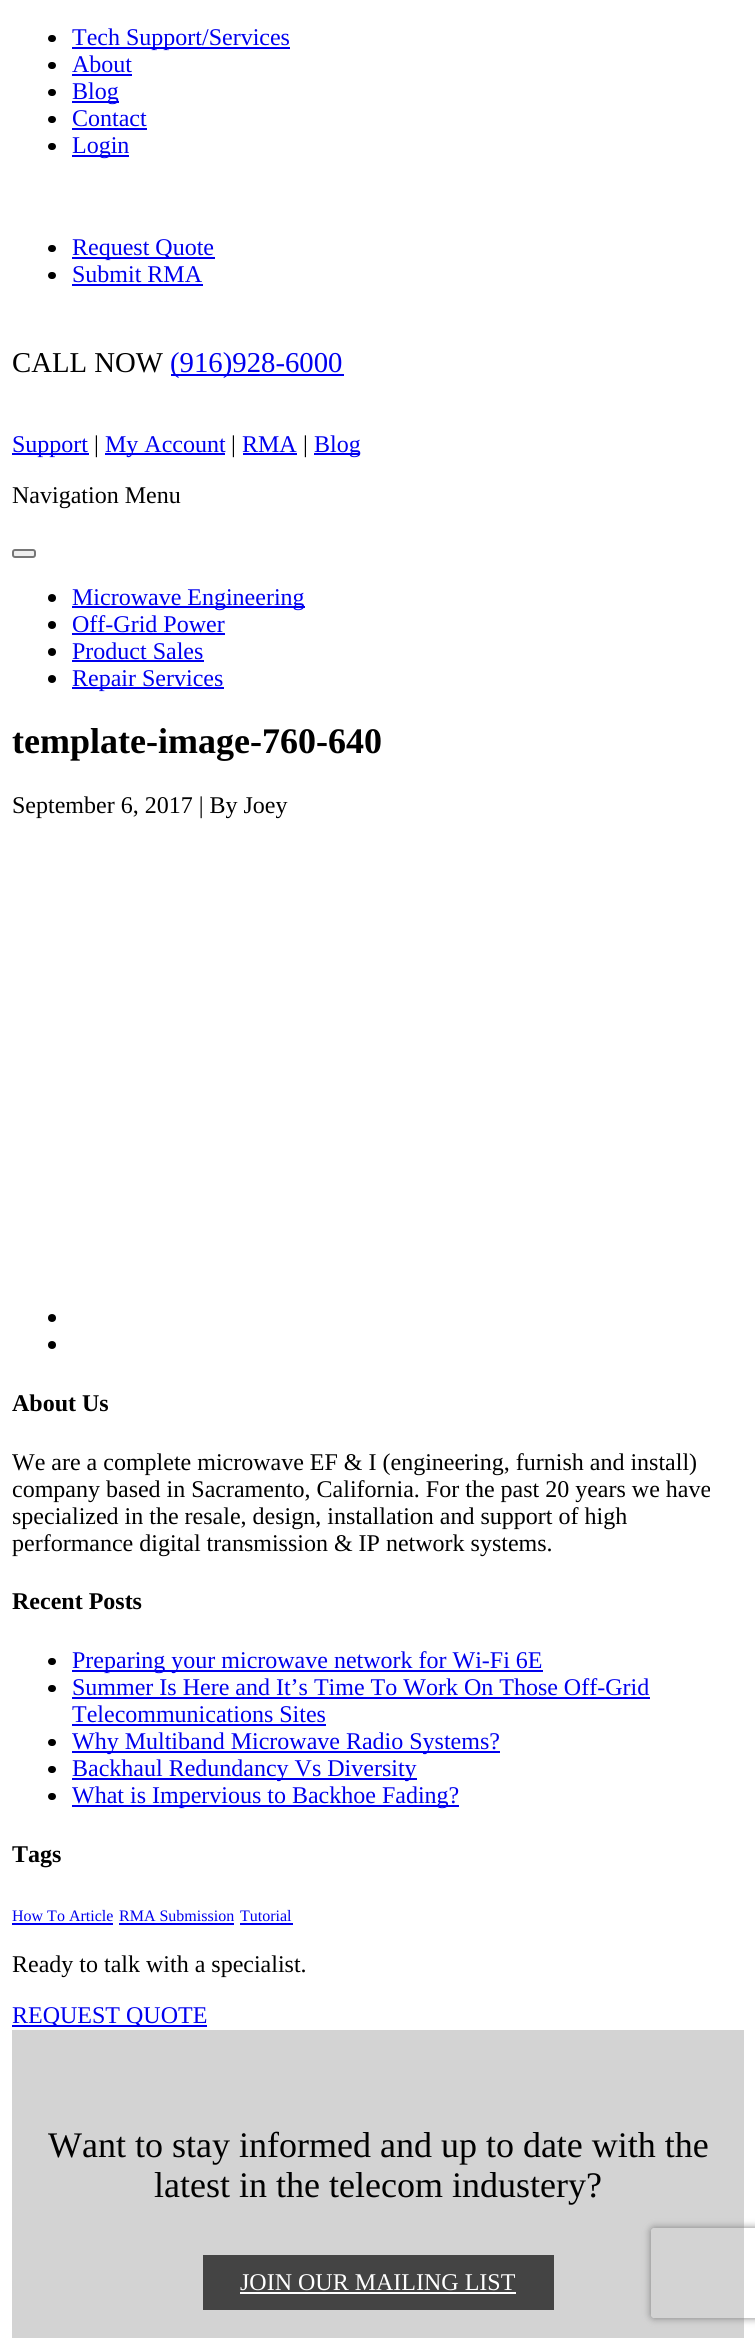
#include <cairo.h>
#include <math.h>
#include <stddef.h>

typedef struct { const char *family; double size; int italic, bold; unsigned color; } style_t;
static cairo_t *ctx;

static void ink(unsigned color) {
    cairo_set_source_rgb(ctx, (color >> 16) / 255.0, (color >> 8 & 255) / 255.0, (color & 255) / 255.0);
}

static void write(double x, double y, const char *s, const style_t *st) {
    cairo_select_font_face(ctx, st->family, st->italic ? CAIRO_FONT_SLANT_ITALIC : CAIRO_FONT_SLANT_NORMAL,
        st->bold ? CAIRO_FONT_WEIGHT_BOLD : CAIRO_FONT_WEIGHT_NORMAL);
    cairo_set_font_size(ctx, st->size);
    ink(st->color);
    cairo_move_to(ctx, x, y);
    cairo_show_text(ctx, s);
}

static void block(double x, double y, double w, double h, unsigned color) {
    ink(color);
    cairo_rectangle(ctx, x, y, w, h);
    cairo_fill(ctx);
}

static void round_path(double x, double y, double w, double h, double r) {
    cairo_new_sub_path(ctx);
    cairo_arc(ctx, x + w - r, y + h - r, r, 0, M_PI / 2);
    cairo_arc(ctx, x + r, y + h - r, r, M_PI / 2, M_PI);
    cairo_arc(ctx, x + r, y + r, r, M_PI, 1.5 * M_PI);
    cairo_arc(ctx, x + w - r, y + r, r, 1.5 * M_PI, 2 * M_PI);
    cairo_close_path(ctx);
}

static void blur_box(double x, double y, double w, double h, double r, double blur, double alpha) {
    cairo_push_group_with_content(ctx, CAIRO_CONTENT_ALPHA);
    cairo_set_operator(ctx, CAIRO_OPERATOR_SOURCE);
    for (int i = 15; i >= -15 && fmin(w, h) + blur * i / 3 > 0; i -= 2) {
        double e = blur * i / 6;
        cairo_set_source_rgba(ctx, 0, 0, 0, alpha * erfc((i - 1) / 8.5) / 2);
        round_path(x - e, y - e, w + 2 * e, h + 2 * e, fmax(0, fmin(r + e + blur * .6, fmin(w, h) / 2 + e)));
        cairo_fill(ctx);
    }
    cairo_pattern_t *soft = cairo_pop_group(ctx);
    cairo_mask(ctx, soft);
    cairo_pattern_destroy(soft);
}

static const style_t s1 = {"Liberation Serif", 24, 0, 0, 0x0000ee};
static const style_t s2 = {"Liberation Serif", 28.75, 0, 0, 0x000000};
static const style_t s3 = {"Liberation Serif", 28.75, 0, 0, 0x0000ee};
static const style_t s4 = {"Liberation Serif", 24, 0, 0, 0x000000};
static const style_t s5 = {"Liberation Serif", 36, 0, 1, 0x000000};
static const style_t s6 = {"Liberation Serif", 24, 0, 1, 0x000000};
static const style_t s7 = {"Liberation Serif", 16, 0, 0, 0x0000ee};
static const style_t s8 = {"Liberation Serif", 36, 0, 0, 0x000000};
static const style_t s9 = {"Liberation Serif", 24, 0, 0, 0xffffff};

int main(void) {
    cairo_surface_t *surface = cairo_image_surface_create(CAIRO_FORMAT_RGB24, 755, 2338);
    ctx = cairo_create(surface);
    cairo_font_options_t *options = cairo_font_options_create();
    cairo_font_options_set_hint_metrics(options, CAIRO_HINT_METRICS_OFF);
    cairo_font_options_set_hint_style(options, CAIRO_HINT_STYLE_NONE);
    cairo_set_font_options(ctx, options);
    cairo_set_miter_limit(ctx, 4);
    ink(0xffffff);
    cairo_paint(ctx);
    ink(0x000000);
    round_path(48, 35, 8, 7, 3.5);
    cairo_fill(ctx);
    block(72, 47, 218, 2, 0x0000ee);
    write(72, 45, "Tech Support/Services", &s1);
    ink(0x000000);
    round_path(48, 62, 8, 7, 3.5);
    cairo_fill(ctx);
    write(72, 72, "About", &s1);
    block(72, 74, 60, 2, 0x0000ee);
    ink(0x000000);
    round_path(48, 89, 8, 7, 3.5);
    cairo_fill(ctx);
    block(72, 101, 47, 2, 0x0000ee);
    write(72, 99, "Blog", &s1);
    ink(0x000000);
    round_path(48, 116, 8, 7, 3.5);
    cairo_fill(ctx);
    write(72, 126, "Contact", &s1);
    block(72, 128, 75, 2, 0x0000ee);
    ink(0x000000);
    round_path(48, 143, 8, 7, 3.5);
    cairo_fill(ctx);
    block(72, 155, 57, 2, 0x0000ee);
    write(72, 153, "Login", &s1);
    ink(0x000000);
    round_path(48, 245, 8, 7, 3.5);
    cairo_fill(ctx);
    block(72, 257, 143, 2, 0x0000ee);
    write(72, 255, "Request Quote", &s1);
    ink(0x000000);
    round_path(48, 272, 8, 7, 3.5);
    cairo_fill(ctx);
    write(72, 282, "Submit RMA", &s1);
    block(72, 284, 131, 2, 0x0000ee);
    write(12, 372, "CALL NOW", &s2);
    block(171, 374, 173, 2, 0x0000ee);
    write(170, 372, "(916)928-6000", &s3);
    block(12, 453, 77, 2, 0x0000ee);
    write(12, 452, "Support", &s1);
    write(94, 452, "|", &s4);
    block(105, 453, 120, 2, 0x0000ee);
    write(105, 452, "My Account", &s1);
    write(231, 452, "|", &s4);
    write(242, 452, "RMA", &s1);
    block(243, 453, 54, 2, 0x0000ee);
    write(303, 452, "|", &s4);
    block(314, 453, 46, 2, 0x0000ee);
    write(314, 452, "Blog", &s1);
    write(12, 503, "Navigation Menu", &s4);
    ink(0xefefef);
    round_path(13, 550, 22, 7, 2);
    cairo_fill_preserve(ctx);
    ink(0x767676);
    cairo_stroke(ctx);
    ink(0x000000);
    cairo_arc(ctx, 52, 598, 4, 0, 2 * M_PI);
    cairo_fill(ctx);
    block(72, 606, 233, 2, 0x0000ee);
    write(72, 605, "Microwave Engineering", &s1);
    ink(0x000000);
    cairo_new_path(ctx);
    cairo_arc(ctx, 52, 625, 4, 0, 2 * M_PI);
    cairo_fill(ctx);
    write(72, 632, "Off-Grid Power", &s1);
    block(72, 633, 153, 2, 0x0000ee);
    ink(0x000000);
    cairo_new_path(ctx);
    cairo_arc(ctx, 52, 652, 4, 0, 2 * M_PI);
    cairo_fill(ctx);
    write(72, 659, "Product Sales", &s1);
    block(72, 660, 132, 2, 0x0000ee);
    ink(0x000000);
    cairo_new_path(ctx);
    cairo_arc(ctx, 52, 679, 4, 0, 2 * M_PI);
    cairo_fill(ctx);
    block(72, 687, 152, 2, 0x0000ee);
    write(72, 686, "Repair Services", &s1);
    write(12, 753, "template-image-760-640", &s5);
    write(12, 813, "September 6, 2017 | By Joey", &s4);
    cairo_new_path(ctx);
    cairo_arc(ctx, 52, 1318, 4, 0, 2 * M_PI);
    cairo_fill(ctx);
    cairo_arc(ctx, 52, 1345, 4, 0, 2 * M_PI);
    cairo_fill(ctx);
    write(12, 1411, "About Us", &s6);
    write(12, 1470, "We are a complete microwave EF & I (engineering, furnish and install)", &s4);
    write(12, 1497, "company based in Sacramento, California. For the past 20 years we have", &s4);
    write(12, 1524, "specialized in the resale, design, installation and support of high", &s4);
    write(12, 1551, "performance digital transmission & IP network systems.", &s4);
    write(12, 1609, "Recent Posts", &s6);
    round_path(48, 1658, 8, 7, 3.5);
    cairo_fill(ctx);
    block(72, 1670, 471, 2, 0x0000ee);
    write(72, 1668, "Preparing your microwave network for Wi-Fi 6E", &s1);
    ink(0x000000);
    round_path(48, 1685, 8, 7, 3.5);
    cairo_fill(ctx);
    write(72, 1695, "Summer Is Here and It’s Time To Work On Those Off-Grid", &s1);
    block(72, 1697, 578, 2, 0x0000ee);
    write(72, 1722, "Telecommunications Sites", &s1);
    block(72, 1724, 254, 2, 0x0000ee);
    ink(0x000000);
    round_path(48, 1739, 8, 7, 3.5);
    cairo_fill(ctx);
    block(72, 1751, 428, 2, 0x0000ee);
    write(72, 1749, "Why Multiband Microwave Radio Systems?", &s1);
    ink(0x000000);
    round_path(48, 1766, 8, 7, 3.5);
    cairo_fill(ctx);
    block(72, 1778, 345, 2, 0x0000ee);
    write(72, 1776, "Backhaul Redundancy Vs Diversity", &s1);
    ink(0x000000);
    round_path(48, 1793, 8, 7, 3.5);
    cairo_fill(ctx);
    block(72, 1805, 387, 2, 0x0000ee);
    write(72, 1803, "What is Impervious to Backhoe Fading?", &s1);
    write(12, 1862, "Tags", &s6);
    write(12, 1921, "How To Article", &s7);
    block(12, 1923, 101, 2, 0x0000ee);
    write(119, 1921, "RMA Submission", &s7);
    block(119, 1923, 115, 2, 0x0000ee);
    write(240, 1921, "Tutorial", &s7);
    block(240, 1923, 53, 2, 0x0000ee);
    write(12, 1972, "Ready to talk with a specialist.", &s4);
    block(12, 2025, 195, 2, 0x0000ee);
    write(12, 2023, "REQUEST QUOTE", &s1);
    block(12, 2030, 732, 308, 0xd3d3d3);
    write(48, 2157, "Want to stay informed and up to date with the", &s8);
    write(154, 2197, "latest in the telecom industery?", &s8);
    block(203, 2255, 351, 55, 0x444444);
    write(240, 2290, "JOIN OUR MAILING LIST", &s9);
    block(240, 2292, 276, 2, 0xffffff);
    cairo_save(ctx);
    cairo_set_fill_rule(ctx, CAIRO_FILL_RULE_EVEN_ODD);
    cairo_new_path(ctx);
    cairo_move_to(ctx, 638, 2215);
    cairo_line_to(ctx, 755, 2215);
    cairo_line_to(ctx, 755, 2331);
    cairo_line_to(ctx, 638, 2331);
    cairo_close_path(ctx);
    cairo_move_to(ctx, 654, 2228);
    cairo_line_to(ctx, 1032, 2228);
    cairo_curve_to(ctx, 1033.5, 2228, 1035, 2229.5, 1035, 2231);
    cairo_line_to(ctx, 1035, 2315);
    cairo_curve_to(ctx, 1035, 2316.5, 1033.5, 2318, 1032, 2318);
    cairo_line_to(ctx, 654, 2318);
    cairo_curve_to(ctx, 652.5, 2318, 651, 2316.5, 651, 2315);
    cairo_line_to(ctx, 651, 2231);
    cairo_curve_to(ctx, 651, 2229.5, 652.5, 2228, 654, 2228);
    cairo_close_path(ctx);
    cairo_clip(ctx);
    ink(0x808080);
    blur_box(651, 2228, 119, 90, 3, 4, 1);
    cairo_restore(ctx);
    cairo_surface_write_to_png(surface, "screenshot.png");
    cairo_font_options_destroy(options);
    cairo_destroy(ctx);
    cairo_surface_destroy(surface);
    return 0;
}
